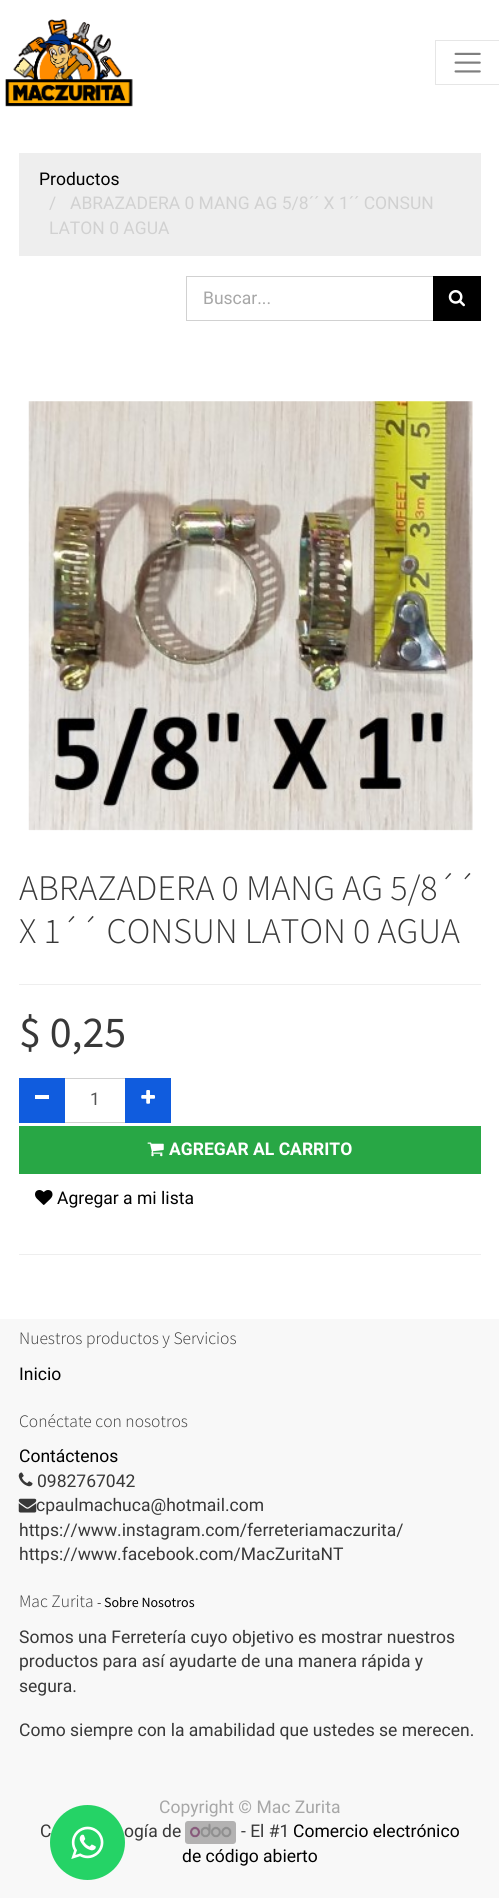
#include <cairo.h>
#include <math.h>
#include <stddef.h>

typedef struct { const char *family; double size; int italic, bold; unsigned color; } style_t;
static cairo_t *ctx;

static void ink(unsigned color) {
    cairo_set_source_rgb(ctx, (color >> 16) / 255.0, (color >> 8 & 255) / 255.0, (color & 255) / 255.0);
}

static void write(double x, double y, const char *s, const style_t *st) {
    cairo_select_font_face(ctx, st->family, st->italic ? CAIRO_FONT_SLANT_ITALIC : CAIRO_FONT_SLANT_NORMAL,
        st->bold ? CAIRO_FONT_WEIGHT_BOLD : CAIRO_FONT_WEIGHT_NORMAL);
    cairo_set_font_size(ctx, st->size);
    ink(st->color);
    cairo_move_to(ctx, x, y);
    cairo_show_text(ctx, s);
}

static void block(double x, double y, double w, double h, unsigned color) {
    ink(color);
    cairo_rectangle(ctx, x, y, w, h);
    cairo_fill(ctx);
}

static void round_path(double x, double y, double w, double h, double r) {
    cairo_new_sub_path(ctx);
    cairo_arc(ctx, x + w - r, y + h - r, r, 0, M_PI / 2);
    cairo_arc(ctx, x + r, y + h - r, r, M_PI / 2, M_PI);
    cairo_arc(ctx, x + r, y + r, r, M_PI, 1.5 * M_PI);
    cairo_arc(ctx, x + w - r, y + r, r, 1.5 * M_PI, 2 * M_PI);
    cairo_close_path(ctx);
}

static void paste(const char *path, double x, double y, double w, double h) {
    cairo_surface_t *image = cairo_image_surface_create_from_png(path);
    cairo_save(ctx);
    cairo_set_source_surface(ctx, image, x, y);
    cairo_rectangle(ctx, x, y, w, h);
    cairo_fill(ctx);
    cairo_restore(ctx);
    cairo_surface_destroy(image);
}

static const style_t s1 = {"Heebo", 17.5, 0, 0, 0x383838};
static const style_t s2 = {"Heebo", 17.5, 0, 0, 0x000000};
static const style_t s3 = {"Heebo", 17.5, 0, 0, 0xd1d1d1};
static const style_t s4 = {"Heebo", 17.5, 0, 0, 0xa7a7a7};
static const style_t s5 = {"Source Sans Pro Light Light", 36, 0, 0, 0x383838};
static const style_t s6 = {"Source Sans Pro", 44, 0, 0, 0x383838};
static const style_t s7 = {"Heebo", 17.5, 0, 0, 0x555555};
static const style_t s8 = {"Heebo", 17.5, 0, 1, 0xffffff};
static const style_t s9 = {"Source Sans Pro Light Light", 17.5, 0, 0, 0x383838};
static const style_t s10 = {"Source Sans Pro", 14, 0, 0, 0x383838};
static const style_t s11 = {"Source Sans Pro", 14, 0, 0, 0x000000};

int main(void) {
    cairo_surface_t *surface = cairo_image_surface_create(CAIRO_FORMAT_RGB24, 499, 1898);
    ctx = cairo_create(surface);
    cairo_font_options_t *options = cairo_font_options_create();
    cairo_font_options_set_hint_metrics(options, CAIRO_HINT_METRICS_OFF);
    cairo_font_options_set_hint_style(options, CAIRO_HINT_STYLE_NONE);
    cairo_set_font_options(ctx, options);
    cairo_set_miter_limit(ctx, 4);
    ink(0xffffff);
    cairo_paint(ctx);
    paste("pic1.png", 5, 19, 128, 88);
    cairo_rectangle(ctx, 435.5, 40.5, 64, 44);
    ink(0xe6e6e6);
    cairo_set_line_width(ctx, 1);
    cairo_stroke(ctx);
    paste("pic2.png", 454, 52, 27, 21);
    block(0, 1319, 499, 579, 0xf8f8f8);
    write(40, 1837, "C", &s1);
    write(124, 1837, "ogía de", &s1);
    ink(0x25d366);
    cairo_new_path(ctx);
    cairo_arc(ctx, 87.5, 1842.5, 37.5, 0, 2 * M_PI);
    cairo_fill(ctx);
    paste("pic3.png", 71, 1826, 33, 33);
    block(19, 153, 462, 103, 0xeeeeee);
    write(39, 185, "Productos", &s2);
    write(49, 209, "/", &s3);
    write(70, 209, "ABRAZADERA 0 MANG AG 5/8´´ X 1´´ CONSUN", &s3);
    write(49, 234, "LATON 0 AGUA", &s3);
    cairo_rectangle(ctx, 186.5, 276.5, 247, 44);
    cairo_stroke(ctx);
    write(203, 304, "Buscar...", &s4);
    block(433, 276, 48, 45, 0x000000);
    paste("pic4.png", 448, 290, 17, 17);
    paste("pic5.png", 28, 401, 445, 430);
    write(19, 900, "ABRAZADERA 0 MANG AG 5/8´´", &s5);
    write(19, 943, "X 1´´ CONSUN LATON 0 AGUA", &s5);
    block(19, 984, 462, 1, 0xeeeeee);
    write(19, 1047, "$ 0,25", &s6);
    cairo_rectangle(ctx, 64.5, 1078.5, 61, 44);
    ink(0xd1d1d1);
    cairo_stroke(ctx);
    block(19, 1078, 46, 45, 0x105cde);
    block(35, 1095, 14, 4, 0xffffff);
    write(90, 1105, "1", &s7);
    block(125, 1078, 46, 45, 0x105cde);
    paste("pic6.png", 141, 1090, 14, 14);
    block(19, 1126, 462, 48, 0x28a745);
    paste("pic7.png", 147, 1142, 17, 15);
    write(169, 1155, "AGREGAR AL CARRITO", &s8);
    paste("pic8.png", 35, 1190, 18, 15);
    write(57, 1204, "Agregar a mi lista", &s2);
    block(19, 1254, 462, 1, 0xeeeeee);
    write(19, 1344, "Nuestros productos y Servicios", &s9);
    write(19, 1380, "Inicio", &s2);
    write(19, 1427, "Conéctate con nosotros", &s9);
    write(19, 1462, "Contáctenos", &s2);
    paste("pic9.png", 18, 1472, 15, 15);
    write(37, 1487, "0982767042", &s1);
    paste("pic10.png", 18, 1498, 19, 15);
    write(36, 1511, "cpaulmachuca@hotmail.com", &s1);
    write(19, 1536, "https://www.instagram.com/ferreteriamaczurita/", &s1);
    write(19, 1560, "https://www.facebook.com/MacZuritaNT", &s1);
    write(19, 1607, "Mac Zurita", &s9);
    write(97, 1607, "-", &s10);
    write(104, 1607, "Sobre Nosotros", &s11);
    write(19, 1643, "Somos una Ferretería cuyo objetivo es mostrar nuestros", &s1);
    write(19, 1667, "productos para así ayudarte de una manera rápida y", &s1);
    write(19, 1692, "segura.", &s1);
    write(19, 1736, "Como siempre con la amabilidad que ustedes se merecen.", &s1);
    write(159, 1813, "Copyright © Mac Zurita", &s4);
    ink(0xb3b2b2);
    round_path(185, 1821, 51, 23, 3);
    cairo_fill(ctx);
    paste("pic11.png", 190, 1823, 42, 15);
    write(241, 1837, "- El #1", &s1);
    write(293, 1837, "Comercio electrónico", &s2);
    write(182, 1862, "de código abierto", &s2);
    cairo_surface_write_to_png(surface, "screenshot.png");
    cairo_font_options_destroy(options);
    cairo_destroy(ctx);
    cairo_surface_destroy(surface);
    return 0;
}
